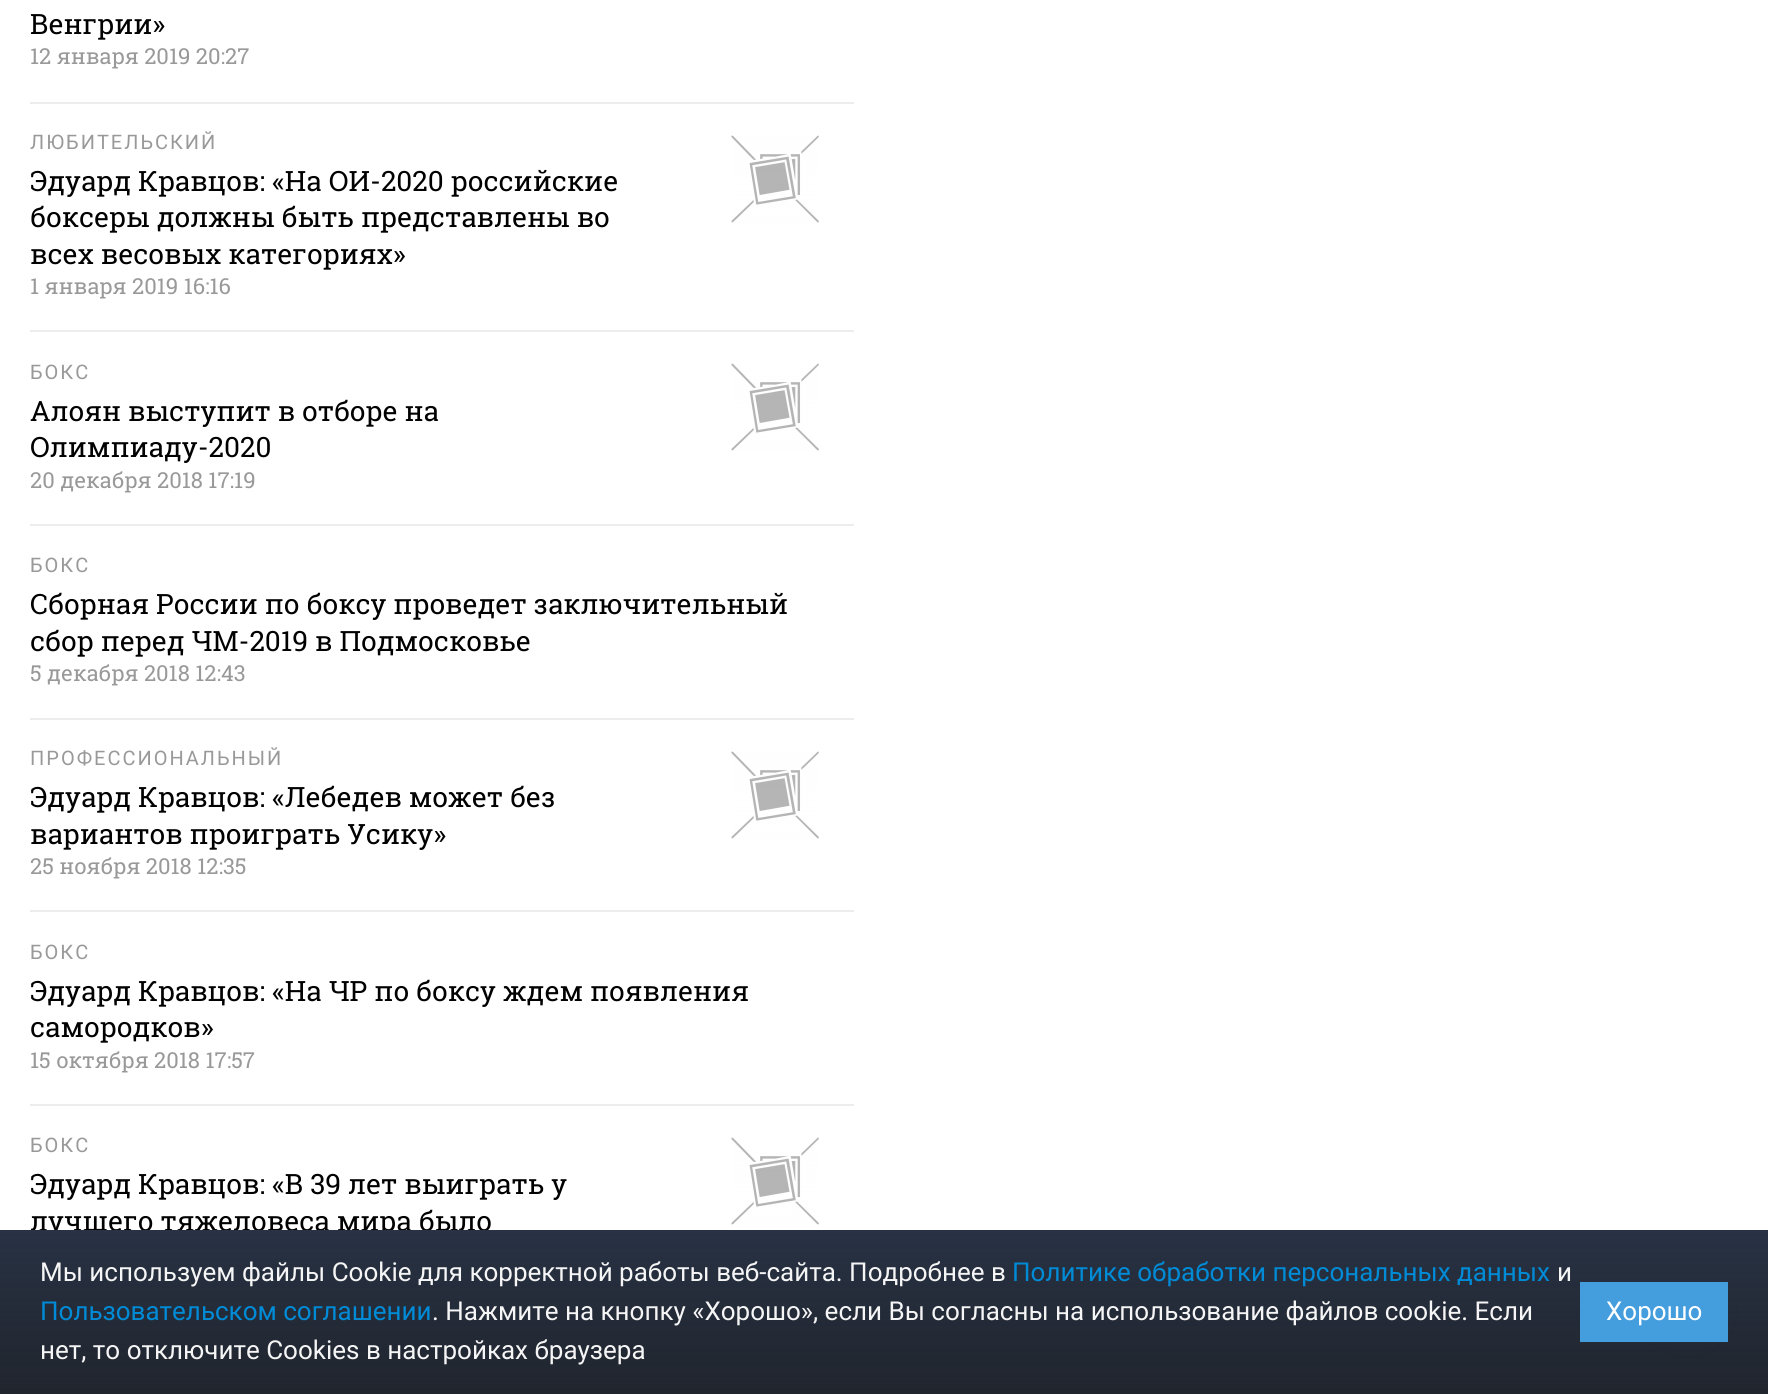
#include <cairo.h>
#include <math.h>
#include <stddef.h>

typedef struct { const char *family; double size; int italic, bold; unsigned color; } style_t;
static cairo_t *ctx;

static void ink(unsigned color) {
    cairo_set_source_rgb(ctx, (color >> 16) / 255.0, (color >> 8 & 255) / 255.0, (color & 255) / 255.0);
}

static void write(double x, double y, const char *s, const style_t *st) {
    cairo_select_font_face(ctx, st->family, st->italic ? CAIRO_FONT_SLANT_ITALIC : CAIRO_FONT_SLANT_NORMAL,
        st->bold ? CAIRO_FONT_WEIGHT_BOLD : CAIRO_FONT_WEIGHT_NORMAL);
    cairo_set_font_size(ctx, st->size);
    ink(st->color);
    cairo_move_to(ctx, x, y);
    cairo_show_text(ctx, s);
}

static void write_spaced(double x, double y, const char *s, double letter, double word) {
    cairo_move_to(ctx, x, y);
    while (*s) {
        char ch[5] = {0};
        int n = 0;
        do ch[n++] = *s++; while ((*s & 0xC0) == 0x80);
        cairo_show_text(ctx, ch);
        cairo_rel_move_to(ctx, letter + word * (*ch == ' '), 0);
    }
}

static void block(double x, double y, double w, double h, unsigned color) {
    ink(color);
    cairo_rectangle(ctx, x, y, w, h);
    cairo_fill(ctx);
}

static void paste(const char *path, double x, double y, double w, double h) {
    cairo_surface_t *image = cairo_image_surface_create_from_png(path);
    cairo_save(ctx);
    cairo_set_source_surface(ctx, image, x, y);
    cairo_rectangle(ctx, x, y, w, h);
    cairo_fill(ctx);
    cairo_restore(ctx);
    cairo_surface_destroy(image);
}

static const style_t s1 = {"Roboto Slab", 28, 0, 0, 0x000000};
static const style_t s2 = {"Roboto Slab", 22, 0, 0, 0x999999};
static const style_t s3 = {"Roboto", 26, 0, 0, 0xf5f5f5};
static const style_t s4 = {"Roboto", 26, 0, 0, 0x008bd7};
static const style_t s5 = {"Roboto", 26, 0, 0, 0xffffff};

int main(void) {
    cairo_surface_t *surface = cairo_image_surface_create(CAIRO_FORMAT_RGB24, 1768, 1394);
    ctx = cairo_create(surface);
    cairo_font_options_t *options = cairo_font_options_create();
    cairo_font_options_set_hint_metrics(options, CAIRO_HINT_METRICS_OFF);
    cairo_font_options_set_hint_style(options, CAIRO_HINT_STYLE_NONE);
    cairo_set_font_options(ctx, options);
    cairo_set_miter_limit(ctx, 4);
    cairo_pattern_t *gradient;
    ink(0xffffff);
    cairo_paint(ctx);
    block(30, 102, 824, 2, 0xededed);
    write(30, 34, "Венгрии»", &s1);
    write(30, 64, "12 января 2019 20:27", &s2);
    block(30, 330, 824, 2, 0xededed);
    cairo_select_font_face(ctx, "Roboto", CAIRO_FONT_SLANT_NORMAL, CAIRO_FONT_WEIGHT_NORMAL);
    cairo_set_font_size(ctx, 20);
    ink(0x999999);
    write_spaced(30, 149, "ЛЮБИТЕЛЬСКИЙ", 2, 0);
    paste("pic1.png", 731, 135, 88, 88);
    write(30, 191, "Эдуард Кравцов: «На ОИ-2020 российские", &s1);
    write(30, 227, "боксеры должны быть представлены во", &s1);
    write(30, 264, "всех весовых категориях»", &s1);
    write(30, 294, "1 января 2019 16:16", &s2);
    block(30, 524, 824, 2, 0xededed);
    cairo_select_font_face(ctx, "Roboto", CAIRO_FONT_SLANT_NORMAL, CAIRO_FONT_WEIGHT_NORMAL);
    cairo_set_font_size(ctx, 20);
    ink(0x999999);
    write_spaced(30, 379, "БОКС", 2, 0);
    paste("pic1.png", 731, 363, 88, 88);
    write(30, 421, "Алоян выступит в отборе на", &s1);
    write(30, 457, "Олимпиаду-2020", &s1);
    write(30, 488, "20 декабря 2018 17:19", &s2);
    block(30, 718, 824, 2, 0xededed);
    cairo_select_font_face(ctx, "Roboto", CAIRO_FONT_SLANT_NORMAL, CAIRO_FONT_WEIGHT_NORMAL);
    cairo_set_font_size(ctx, 20);
    ink(0x999999);
    write_spaced(30, 572, "БОКС", 2, 0);
    write(30, 614, "Сборная России по боксу проведет заключительный", &s1);
    write(30, 651, "сбор перед ЧМ-2019 в Подмосковье", &s1);
    write(30, 681, "5 декабря 2018 12:43", &s2);
    block(30, 910, 824, 2, 0xededed);
    cairo_select_font_face(ctx, "Roboto", CAIRO_FONT_SLANT_NORMAL, CAIRO_FONT_WEIGHT_NORMAL);
    cairo_set_font_size(ctx, 20);
    ink(0x999999);
    write_spaced(30, 765, "ПРОФЕССИОНАЛЬНЫЙ", 2, 0);
    paste("pic1.png", 731, 751, 88, 88);
    write(30, 807, "Эдуард Кравцов: «Лебедев может без", &s1);
    write(30, 844, "вариантов проиграть Усику»", &s1);
    write(30, 874, "25 ноября 2018 12:35", &s2);
    block(30, 1104, 824, 2, 0xededed);
    cairo_select_font_face(ctx, "Roboto", CAIRO_FONT_SLANT_NORMAL, CAIRO_FONT_WEIGHT_NORMAL);
    cairo_set_font_size(ctx, 20);
    ink(0x999999);
    write_spaced(30, 959, "БОКС", 2, 0);
    write(30, 1001, "Эдуард Кравцов: «На ЧР по боксу ждем появления", &s1);
    write(30, 1037, "самородков»", &s1);
    write(30, 1068, "15 октября 2018 17:57", &s2);
    block(30, 1334, 824, 2, 0xededed);
    cairo_select_font_face(ctx, "Roboto", CAIRO_FONT_SLANT_NORMAL, CAIRO_FONT_WEIGHT_NORMAL);
    cairo_set_font_size(ctx, 20);
    ink(0x999999);
    write_spaced(30, 1152, "БОКС", 2, 0);
    paste("pic1.png", 731, 1137, 88, 88);
    write(30, 1194, "Эдуард Кравцов: «В 39 лет выиграть у", &s1);
    write(30, 1231, "лучшего тяжеловеса мира было", &s1);
    paste("pic2.png", 1643, 1257, 96, 107);
    gradient = cairo_pattern_create_linear(884, 1230, 884, 1394);
    cairo_pattern_add_color_stop_rgba(gradient, 0, 0.157, 0.196, 0.267, 1);
    cairo_pattern_add_color_stop_rgba(gradient, 1, 0.082, 0.102, 0.137, 0.95);
    cairo_set_source(ctx, gradient);
    cairo_pattern_destroy(gradient);
    cairo_rectangle(ctx, 0, 1230, 1768, 164);
    cairo_fill(ctx);
    write(40, 1281, "Мы используем файлы Сookie для корректной работы веб-сайта. Подробнее в", &s3);
    write(1012, 1281, "Политике обработки персональных данных", &s4);
    write(1557, 1281, "и", &s3);
    write(40, 1320, "Пользовательском соглашении", &s4);
    write(432, 1320, ". Нажмите на кнопку «Хорошо», если Вы согласны на использование файлов cookie. Если", &s3);
    write(40, 1359, "нет, то отключите Cookies в настройках браузера", &s3);
    block(1580, 1282, 148, 60, 0x449ddd);
    write(1606, 1320, "Хорошо", &s5);
    cairo_surface_write_to_png(surface, "screenshot.png");
    cairo_font_options_destroy(options);
    cairo_destroy(ctx);
    cairo_surface_destroy(surface);
    return 0;
}
